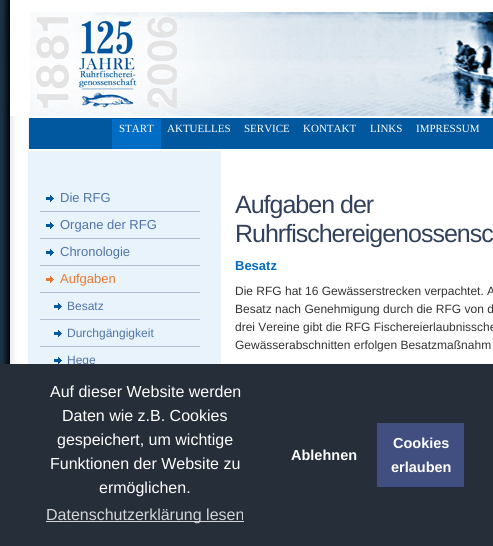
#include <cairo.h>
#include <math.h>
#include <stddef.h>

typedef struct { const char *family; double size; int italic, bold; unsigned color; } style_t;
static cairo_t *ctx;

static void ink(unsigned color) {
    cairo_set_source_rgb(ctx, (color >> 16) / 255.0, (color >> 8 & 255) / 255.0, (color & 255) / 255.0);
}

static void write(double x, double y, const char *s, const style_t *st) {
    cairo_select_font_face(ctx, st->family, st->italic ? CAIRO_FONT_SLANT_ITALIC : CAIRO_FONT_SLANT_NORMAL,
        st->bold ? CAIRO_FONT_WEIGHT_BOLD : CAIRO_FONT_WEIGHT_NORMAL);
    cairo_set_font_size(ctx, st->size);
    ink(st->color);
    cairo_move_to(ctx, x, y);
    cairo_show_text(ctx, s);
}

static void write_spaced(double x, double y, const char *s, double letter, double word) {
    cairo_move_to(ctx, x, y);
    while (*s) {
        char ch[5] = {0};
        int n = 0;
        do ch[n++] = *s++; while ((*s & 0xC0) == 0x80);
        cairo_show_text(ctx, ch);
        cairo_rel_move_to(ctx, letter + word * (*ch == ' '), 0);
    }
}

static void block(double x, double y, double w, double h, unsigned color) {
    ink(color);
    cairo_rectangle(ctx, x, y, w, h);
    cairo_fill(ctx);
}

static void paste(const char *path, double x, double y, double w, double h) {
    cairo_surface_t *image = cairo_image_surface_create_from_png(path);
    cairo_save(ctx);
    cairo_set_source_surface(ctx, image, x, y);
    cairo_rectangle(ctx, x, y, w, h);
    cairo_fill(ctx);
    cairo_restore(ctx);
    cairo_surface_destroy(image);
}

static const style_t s1 = {"Liberation Serif", 11, 0, 0, 0xffffff};
static const style_t s2 = {"Liberation Sans", 13, 0, 0, 0x5074a9};
static const style_t s3 = {"Liberation Sans", 13, 0, 0, 0xe87930};
static const style_t s4 = {"Liberation Sans", 12, 0, 0, 0x5074a9};
static const style_t s5 = {"Liberation Sans", 13, 0, 1, 0x026dc4};
static const style_t s6 = {"Liberation Sans", 12, 0, 0, 0x333333};
static const style_t s7 = {"Liberation Sans", 16, 0, 0, 0xffffff};
static const style_t s8 = {"Liberation Sans", 16, 0, 0, 0xd3d5d7};
static const style_t s9 = {"Liberation Sans", 14.5, 0, 1, 0xffffff};

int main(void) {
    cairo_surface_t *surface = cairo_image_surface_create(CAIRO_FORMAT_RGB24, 493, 546);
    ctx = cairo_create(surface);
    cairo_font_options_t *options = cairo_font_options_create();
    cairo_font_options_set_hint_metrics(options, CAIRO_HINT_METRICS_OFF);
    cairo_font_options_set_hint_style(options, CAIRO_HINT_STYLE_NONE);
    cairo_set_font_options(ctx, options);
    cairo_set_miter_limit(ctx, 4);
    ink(0x1b3144);
    cairo_paint(ctx);
    paste("pic1.png", 3, 116, 490, 248);
    paste("pic2.png", 2, 0, 491, 116);
    block(29, 118, 464, 31, 0x01589f);
    block(29, 116, 192, 2, 0xffffff);
    block(29, 149, 192, 2, 0xffffff);
    block(112, 119, 49, 30, 0x026dc4);
    write(119, 132, "START", &s1);
    write(167, 132, "AKTUELLES", &s1);
    write(244, 132, "SERVICE", &s1);
    write(303, 132, "KONTAKT", &s1);
    write(370, 132, "LINKS", &s1);
    write(416, 132, "IMPRESSUM", &s1);
    paste("pic3.png", 46, 195, 8, 7);
    block(40, 211, 160, 1, 0xb2bcd0);
    write(60, 202, "Die RFG", &s2);
    paste("pic3.png", 46, 222, 8, 7);
    block(40, 238, 160, 1, 0xb2bcd0);
    write(60, 229, "Organe der RFG", &s2);
    paste("pic3.png", 46, 249, 8, 7);
    block(40, 265, 160, 1, 0xb2bcd0);
    write(60, 256, "Chronologie", &s2);
    paste("pic4.png", 46, 276, 8, 7);
    block(40, 292, 160, 1, 0xb2bcd0);
    write(60, 283, "Aufgaben", &s3);
    paste("pic3.png", 54, 303, 8, 7);
    block(40, 319, 160, 1, 0xb2bcd0);
    write(67, 310, "Besatz", &s4);
    paste("pic3.png", 54, 330, 8, 7);
    block(40, 346, 160, 1, 0xb2bcd0);
    write(67, 337, "Durchgängigkeit", &s4);
    paste("pic3.png", 54, 357, 8, 7);
    write(67, 364, "Hege", &s4);
    cairo_set_font_size(ctx, 25);
    ink(0x32415b);
    write_spaced(235, 213, "Aufgaben der", -1, 0);
    write_spaced(235, 242, "Ruhrfischereigenossensc", -1, 0);
    write(235, 270, "Besatz", &s5);
    write(235, 295, "Die RFG hat 16 Gewässerstrecken verpachtet. A", &s6);
    write(235, 313, "Besatz nach Genehmigung durch die RFG von d", &s6);
    write(235, 331, "drei Vereine gibt die RFG Fischereierlaubnissche", &s6);
    write(235, 349, "Gewässerabschnitten erfolgen Besatzmaßnahm", &s6);
    block(0, 364, 493, 182, 0x252e39);
    write(50, 397, "Auf dieser Website werden", &s7);
    write(62, 421, "Daten wie z.B. Cookies", &s7);
    write(57, 445, "gespeichert, um wichtige", &s7);
    write(50, 469, "Funktionen der Website zu", &s7);
    write(99, 493, "ermöglichen.", &s7);
    block(46, 521, 198, 1, 0xd3d5d7);
    write(46, 520, "Datenschutzerklärung lesen", &s8);
    write(291, 460, "Ablehnen", &s9);
    block(377, 423, 87, 64, 0x404f80);
    write(393, 448, "Cookies", &s9);
    write(391, 472, "erlauben", &s9);
    cairo_surface_write_to_png(surface, "screenshot.png");
    cairo_font_options_destroy(options);
    cairo_destroy(ctx);
    cairo_surface_destroy(surface);
    return 0;
}
